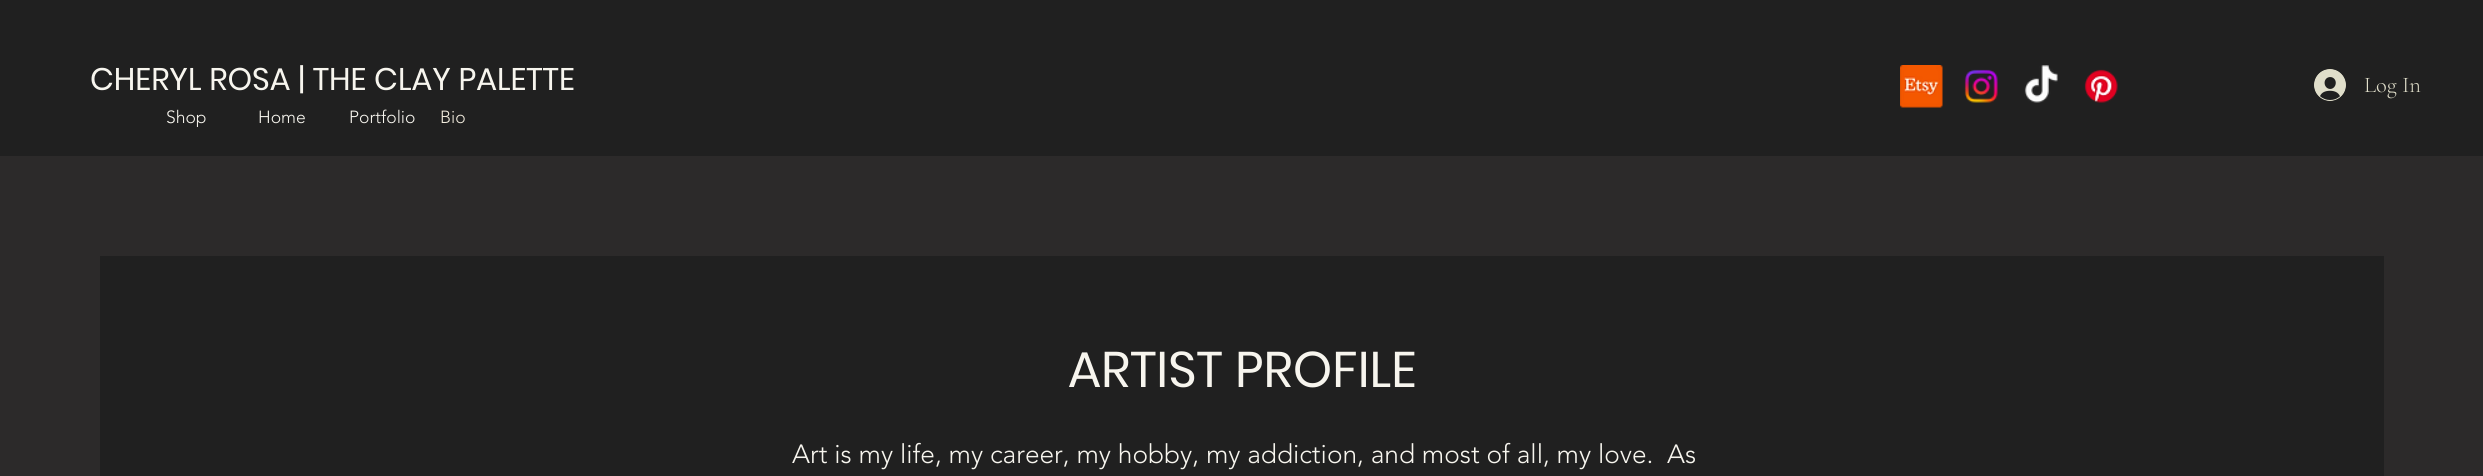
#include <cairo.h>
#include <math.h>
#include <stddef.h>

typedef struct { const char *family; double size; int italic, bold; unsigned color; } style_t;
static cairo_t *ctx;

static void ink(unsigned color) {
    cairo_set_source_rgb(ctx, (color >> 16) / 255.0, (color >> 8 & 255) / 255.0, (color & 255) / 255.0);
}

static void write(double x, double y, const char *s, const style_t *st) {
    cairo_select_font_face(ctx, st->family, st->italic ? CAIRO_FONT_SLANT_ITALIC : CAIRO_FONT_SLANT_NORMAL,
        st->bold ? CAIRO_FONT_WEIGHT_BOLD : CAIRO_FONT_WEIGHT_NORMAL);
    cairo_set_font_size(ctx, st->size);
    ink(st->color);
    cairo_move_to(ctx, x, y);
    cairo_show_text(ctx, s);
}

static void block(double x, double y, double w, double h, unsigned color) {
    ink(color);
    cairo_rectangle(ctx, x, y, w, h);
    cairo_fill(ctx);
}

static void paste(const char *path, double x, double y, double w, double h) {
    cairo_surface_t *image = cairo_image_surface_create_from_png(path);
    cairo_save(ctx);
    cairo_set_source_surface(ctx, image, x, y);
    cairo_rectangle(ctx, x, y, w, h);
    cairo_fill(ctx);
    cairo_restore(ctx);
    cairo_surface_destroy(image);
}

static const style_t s1 = {"Poppins", 31.25, 0, 0, 0xf7f5ee};
static const style_t s2 = {"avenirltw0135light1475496 Light", 17.5, 0, 0, 0xf7f5ee};
static const style_t s3 = {"avenirltw0135light1475496 Light", 17.5, 0, 0, 0xf1ebdd};
static const style_t s4 = {"Cormorant Garamond Light", 22.5, 0, 0, 0xe0deca};
static const style_t s5 = {"Poppins", 50, 0, 0, 0xf7f5ee};
static const style_t s6 = {"avenirltw0135light1475496 Light", 26.25, 0, 0, 0xf7f5ee};

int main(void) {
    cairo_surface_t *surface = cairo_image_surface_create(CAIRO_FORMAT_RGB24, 2483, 476);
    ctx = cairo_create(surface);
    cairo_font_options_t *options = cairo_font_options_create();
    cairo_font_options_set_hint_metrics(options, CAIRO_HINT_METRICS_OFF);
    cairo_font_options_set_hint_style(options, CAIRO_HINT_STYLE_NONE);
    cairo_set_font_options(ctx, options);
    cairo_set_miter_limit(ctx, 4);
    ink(0x202020);
    cairo_paint(ctx);
    write(90, 90, "CHERYL ROSA | THE CLAY PALETTE", &s1);
    write(166, 123, "Shop", &s2);
    write(258, 123, "Home", &s2);
    write(349, 123, "Portfolio", &s2);
    write(440, 123, "Bio", &s3);
    paste("pic1.png", 1900, 65, 43, 43);
    paste("pic2.png", 1964, 69, 34, 34);
    paste("pic3.png", 2024, 65, 34, 38);
    paste("pic4.png", 2084, 69, 34, 34);
    paste("pic5.png", 2314, 69, 32, 32);
    write(2364, 92, "Log In", &s4);
    block(0, 156, 2483, 320, 0x2c2a2a);
    block(100, 256, 2284, 220, 0x202020);
    write(1068, 387, "ARTIST PROFILE", &s5);
    write(792, 463, "Art is my life, my career, my hobby, my addiction, and most of all, my love.  As", &s6);
    cairo_surface_write_to_png(surface, "screenshot.png");
    cairo_font_options_destroy(options);
    cairo_destroy(ctx);
    cairo_surface_destroy(surface);
    return 0;
}
